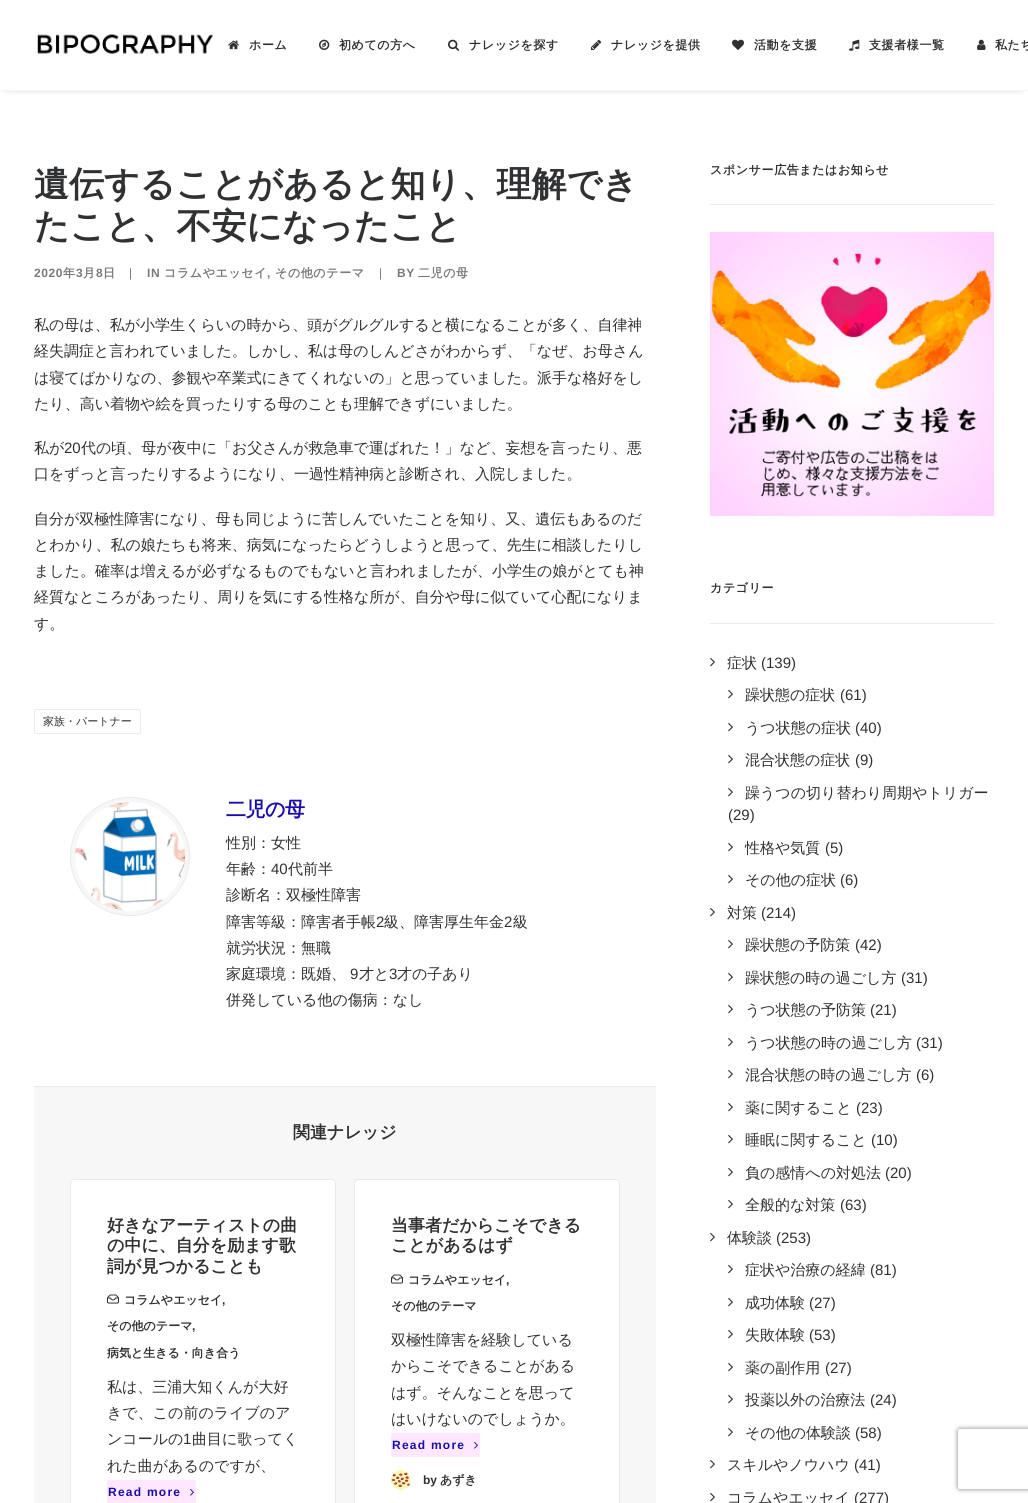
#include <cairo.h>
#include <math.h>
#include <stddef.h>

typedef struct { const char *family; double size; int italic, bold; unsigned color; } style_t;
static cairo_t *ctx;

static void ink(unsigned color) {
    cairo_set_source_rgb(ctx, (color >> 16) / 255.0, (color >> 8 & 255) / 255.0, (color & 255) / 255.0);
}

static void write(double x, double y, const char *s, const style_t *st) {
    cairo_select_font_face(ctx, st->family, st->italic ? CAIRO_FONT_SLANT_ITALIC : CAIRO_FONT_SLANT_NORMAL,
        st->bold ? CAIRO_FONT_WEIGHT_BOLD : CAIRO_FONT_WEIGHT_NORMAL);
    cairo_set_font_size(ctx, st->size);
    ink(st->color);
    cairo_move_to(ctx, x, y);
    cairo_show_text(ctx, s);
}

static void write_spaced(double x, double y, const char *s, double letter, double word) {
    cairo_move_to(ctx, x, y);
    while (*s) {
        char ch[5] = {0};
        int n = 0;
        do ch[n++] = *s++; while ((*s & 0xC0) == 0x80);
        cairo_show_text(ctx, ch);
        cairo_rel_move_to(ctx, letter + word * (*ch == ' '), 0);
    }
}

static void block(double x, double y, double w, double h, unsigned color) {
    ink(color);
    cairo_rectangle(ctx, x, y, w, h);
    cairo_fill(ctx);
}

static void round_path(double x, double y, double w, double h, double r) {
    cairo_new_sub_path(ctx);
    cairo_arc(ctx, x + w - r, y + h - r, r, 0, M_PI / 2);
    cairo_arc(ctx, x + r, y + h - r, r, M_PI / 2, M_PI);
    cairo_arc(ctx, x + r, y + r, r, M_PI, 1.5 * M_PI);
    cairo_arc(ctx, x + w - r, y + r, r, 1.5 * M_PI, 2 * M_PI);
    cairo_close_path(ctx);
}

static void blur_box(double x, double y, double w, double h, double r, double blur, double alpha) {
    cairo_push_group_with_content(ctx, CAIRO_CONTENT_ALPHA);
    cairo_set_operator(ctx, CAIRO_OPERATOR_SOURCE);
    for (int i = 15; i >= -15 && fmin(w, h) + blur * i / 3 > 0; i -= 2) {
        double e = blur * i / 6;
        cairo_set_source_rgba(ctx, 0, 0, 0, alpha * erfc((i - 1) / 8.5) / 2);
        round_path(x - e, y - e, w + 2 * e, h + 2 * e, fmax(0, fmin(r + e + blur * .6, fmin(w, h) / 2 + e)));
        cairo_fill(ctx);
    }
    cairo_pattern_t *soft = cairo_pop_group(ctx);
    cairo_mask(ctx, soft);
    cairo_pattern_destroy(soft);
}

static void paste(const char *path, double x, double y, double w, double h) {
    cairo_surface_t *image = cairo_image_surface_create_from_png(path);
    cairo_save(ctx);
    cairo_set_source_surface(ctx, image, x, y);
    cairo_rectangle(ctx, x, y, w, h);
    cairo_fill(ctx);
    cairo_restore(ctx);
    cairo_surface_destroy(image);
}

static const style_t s1 = {"WenQuanYi Zen Hei", 35, 0, 1, 0x303133};
static const style_t s2 = {"WenQuanYi Zen Hei Medium", 15, 0, 0, 0x303133};
static const style_t s3 = {"Liberation Sans", 15, 0, 0, 0x303133};
static const style_t s4 = {"WenQuanYi Zen Hei Medium", 11, 0, 0, 0x303133};
static const style_t s5 = {"WenQuanYi Zen Hei", 17, 0, 1, 0x303133};
static const style_t s6 = {"WenQuanYi Zen Hei", 12, 0, 1, 0x303133};
static const style_t s7 = {"Liberation Sans", 12, 0, 1, 0x303133};

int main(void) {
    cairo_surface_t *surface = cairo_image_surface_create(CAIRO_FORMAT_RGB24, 1028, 1503);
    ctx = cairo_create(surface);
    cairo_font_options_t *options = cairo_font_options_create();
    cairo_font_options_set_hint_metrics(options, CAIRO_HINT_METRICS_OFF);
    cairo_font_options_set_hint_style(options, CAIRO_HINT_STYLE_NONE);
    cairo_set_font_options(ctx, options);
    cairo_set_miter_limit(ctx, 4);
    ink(0xffffff);
    cairo_paint(ctx);
    ink(0x000000);
    blur_box(8, 14, 1012, 71, 0, 5, 0.6);
    block(0, 3, 1028, 87, 0xffffff);
    block(0, 90, 1028, 1, 0xf5f5f5);
    paste("pic1.png", 37, 34, 176, 20);
    paste("pic2.png", 228, 40, 11, 10);
    cairo_select_font_face(ctx, "WenQuanYi Zen Hei", CAIRO_FONT_SLANT_NORMAL, CAIRO_FONT_WEIGHT_BOLD);
    cairo_set_font_size(ctx, 12);
    ink(0x303133);
    write_spaced(249, 49, "ホーム", 0.6, 0);
    paste("pic3.png", 319, 39, 11, 11);
    write_spaced(339, 49, "初めての方へ", 0.6, 0);
    paste("pic4.png", 448, 39, 12, 12);
    write_spaced(469, 49, "ナレッジを探す", 0.6, 0);
    paste("pic5.png", 591, 39, 11, 11);
    write_spaced(611, 49, "ナレッジを提供", 0.6, 0);
    paste("pic6.png", 732, 39, 12, 11);
    write_spaced(754, 49, "活動を支援", 0.6, 0);
    paste("pic7.png", 849, 39, 11, 12);
    write_spaced(869, 49, "支援者様一覧", 0.6, 0);
    paste("pic8.png", 977, 39, 9, 11);
    write_spaced(995, 49, "私たち", 0.6, 0);
    write(34, 196, "遺伝することがあると知り、理解でき", &s1);
    write(34, 238, "たこと、不安になったこと", &s1);
    cairo_select_font_face(ctx, "Liberation Sans", CAIRO_FONT_SLANT_NORMAL, CAIRO_FONT_WEIGHT_BOLD);
    cairo_set_font_size(ctx, 12);
    ink(0x78797a);
    write_spaced(34, 277, "2020", 0.6, 0);
    cairo_select_font_face(ctx, "WenQuanYi Zen Hei", CAIRO_FONT_SLANT_NORMAL, CAIRO_FONT_WEIGHT_BOLD);
    write_spaced(63, 277, "年", 0.6, 0);
    cairo_select_font_face(ctx, "Liberation Sans", CAIRO_FONT_SLANT_NORMAL, CAIRO_FONT_WEIGHT_BOLD);
    write_spaced(76, 277, "3", 0.6, 0);
    cairo_select_font_face(ctx, "WenQuanYi Zen Hei", CAIRO_FONT_SLANT_NORMAL, CAIRO_FONT_WEIGHT_BOLD);
    write_spaced(83, 277, "月", 0.6, 0);
    cairo_select_font_face(ctx, "Liberation Sans", CAIRO_FONT_SLANT_NORMAL, CAIRO_FONT_WEIGHT_BOLD);
    write_spaced(96, 277, "8", 0.6, 0);
    cairo_select_font_face(ctx, "WenQuanYi Zen Hei", CAIRO_FONT_SLANT_NORMAL, CAIRO_FONT_WEIGHT_BOLD);
    write_spaced(103, 277, "日", 0.6, 0);
    cairo_select_font_face(ctx, "Liberation Sans", CAIRO_FONT_SLANT_NORMAL, CAIRO_FONT_WEIGHT_NORMAL);
    write_spaced(129, 277, "|", 0.6, 0);
    cairo_select_font_face(ctx, "Liberation Sans", CAIRO_FONT_SLANT_NORMAL, CAIRO_FONT_WEIGHT_BOLD);
    write_spaced(147, 277, "IN", 0.6, 0);
    cairo_select_font_face(ctx, "WenQuanYi Zen Hei", CAIRO_FONT_SLANT_NORMAL, CAIRO_FONT_WEIGHT_BOLD);
    write_spaced(164, 277, "コラムやエッセイ", 0.6, 0);
    cairo_select_font_face(ctx, "Liberation Sans", CAIRO_FONT_SLANT_NORMAL, CAIRO_FONT_WEIGHT_BOLD);
    write_spaced(267, 277, ",", 0.6, 0);
    cairo_select_font_face(ctx, "WenQuanYi Zen Hei", CAIRO_FONT_SLANT_NORMAL, CAIRO_FONT_WEIGHT_BOLD);
    write_spaced(275, 277, "その他のテーマ", 0.6, 0);
    cairo_select_font_face(ctx, "Liberation Sans", CAIRO_FONT_SLANT_NORMAL, CAIRO_FONT_WEIGHT_NORMAL);
    write_spaced(379, 277, "|", 0.6, 0);
    cairo_select_font_face(ctx, "Liberation Sans", CAIRO_FONT_SLANT_NORMAL, CAIRO_FONT_WEIGHT_BOLD);
    write_spaced(397, 277, "BY", 0.6, 0);
    cairo_select_font_face(ctx, "WenQuanYi Zen Hei", CAIRO_FONT_SLANT_NORMAL, CAIRO_FONT_WEIGHT_BOLD);
    write_spaced(418, 277, "二児の母", 0.6, 0);
    write(34, 330, "私の母は、私が小学生くらいの時から、頭がグルグルすると横になることが多く、自律神", &s2);
    write(34, 356, "経失調症と言われていました。しかし、私は母のしんどさがわからず、「なぜ、お母さん", &s2);
    write(34, 383, "は寝てばかりなの、参観や卒業式にきてくれないの」と思っていました。派手な格好をし", &s2);
    write(34, 409, "たり、高い着物や絵を買ったりする母のことも理解できずにいました。", &s2);
    write(34, 453, "私が", &s2);
    write(64, 453, "20", &s3);
    write(81, 453, "代の頃、母が夜中に「お父さんが救急車で運ばれた！」など、妄想を言ったり、悪", &s2);
    write(34, 479, "口をずっと言ったりするようになり、一過性精神病と診断され、入院しました。", &s2);
    write(34, 524, "自分が双極性障害になり、母も同じように苦しんでいたことを知り、又、遺伝もあるのだ", &s2);
    write(34, 550, "とわかり、私の娘たちも将来、病気になったらどうしようと思って、先生に相談したりし", &s2);
    write(34, 576, "ました。確率は増えるが必ずなるものでもないと言われましたが、小学生の娘がとても神", &s2);
    write(34, 602, "経質なところがあったり、周りを気にする性格な所が、自分や母に似ていて心配になりま", &s2);
    write(34, 629, "す。", &s2);
    round_path(34.5, 709.5, 106, 24, 1.5);
    ink(0xeaeaea);
    cairo_set_line_width(ctx, 1);
    cairo_stroke(ctx);
    write(43, 725, "家族・パートナー", &s4);
    ink(0xf7f7f7);
    round_path(70.5, 797.5, 119, 118, 59);
    cairo_fill_preserve(ctx);
    ink(0xeaeaea);
    cairo_stroke(ctx);
    paste("pic9.png", 75, 802, 110, 109);
    cairo_select_font_face(ctx, "WenQuanYi Zen Hei", CAIRO_FONT_SLANT_NORMAL, CAIRO_FONT_WEIGHT_BOLD);
    cairo_set_font_size(ctx, 20);
    ink(0x1a0dab);
    write_spaced(226, 816, "二児の母", -0.5, 0);
    write(226, 848, "性別：女性", &s2);
    write(226, 874, "年齢：", &s2);
    write(271, 874, "40", &s3);
    write(288, 874, "代前半", &s2);
    write(226, 900, "診断名：双極性障害", &s2);
    write(226, 927, "障害等級：障害者手帳", &s2);
    write(376, 927, "2", &s3);
    write(384, 927, "級、障害厚生年金", &s2);
    write(504, 927, "2", &s3);
    write(513, 927, "級", &s2);
    write(226, 953, "就労状況：無職", &s2);
    write(226, 979, "家庭環境：既婚、", &s2);
    write(350, 979, "9", &s3);
    write(359, 979, "才と", &s2);
    write(389, 979, "3", &s3);
    write(397, 979, "才の子あり", &s2);
    write(226, 1005, "併発している他の傷病：なし", &s2);
    block(34, 1087, 622, 416, 0xf7f7f7);
    block(34, 1086, 622, 1, 0xeaeaea);
    write(293, 1138, "関連ナレッジ", &s5);
    ink(0xffffff);
    round_path(71, 1180, 264, 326, 3);
    cairo_fill(ctx);
    round_path(70.5, 1179.5, 265, 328, 3.5);
    ink(0xeaeaea);
    cairo_stroke(ctx);
    write(107, 1231, "好きなアーティストの曲", &s5);
    write(107, 1251, "の中に、自分を励ます歌", &s5);
    write(107, 1272, "詞が見つかることも", &s5);
    paste("pic10.png", 107, 1294, 12, 10);
    write(124, 1304, "コラムやエッセイ", &s6);
    write(222, 1304, ",", &s7);
    write(107, 1330, "その他のテーマ", &s6);
    write(192, 1330, ",", &s7);
    write(107, 1357, "病気と生きる・向き合う", &s6);
    write(107, 1392, "私は、三浦大知くんが大好", &s2);
    write(107, 1418, "きで、この前のライブのア", &s2);
    write(107, 1444, "ンコールの", &s2);
    write(183, 1444, "1", &s3);
    write(192, 1444, "曲目に歌ってく", &s2);
    write(107, 1471, "れた曲があるのですが、", &s2);
    ink(0xffe8ff);
    round_path(107, 1480, 89, 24, 2);
    cairo_fill(ctx);
    cairo_select_font_face(ctx, "Liberation Sans", CAIRO_FONT_SLANT_NORMAL, CAIRO_FONT_WEIGHT_BOLD);
    cairo_set_font_size(ctx, 12);
    ink(0x1a0dab);
    write_spaced(108, 1496, "Read more", 1.25, 0);
    paste("pic11.png", 190, 1489, 4, 7);
    ink(0xffffff);
    round_path(355, 1180, 264, 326, 3);
    cairo_fill(ctx);
    round_path(354.5, 1179.5, 265, 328, 3.5);
    ink(0xeaeaea);
    cairo_stroke(ctx);
    write(391, 1231, "当事者だからこそできる", &s5);
    write(391, 1251, "ことがあるはず", &s5);
    paste("pic10.png", 391, 1274, 12, 10);
    write(408, 1284, "コラムやエッセイ", &s6);
    write(506, 1284, ",", &s7);
    write(391, 1310, "その他のテーマ", &s6);
    write(391, 1345, "双極性障害を経験している", &s2);
    write(391, 1371, "からこそできることがある", &s2);
    write(391, 1398, "はず。そんなことを思って", &s2);
    write(391, 1424, "はいけないのでしょうか。", &s2);
    ink(0xffe8ff);
    round_path(391, 1433, 89, 24, 2);
    cairo_fill(ctx);
    cairo_select_font_face(ctx, "Liberation Sans", CAIRO_FONT_SLANT_NORMAL, CAIRO_FONT_WEIGHT_BOLD);
    cairo_set_font_size(ctx, 12);
    ink(0x1a0dab);
    write_spaced(392, 1449, "Read more", 1.25, 0);
    paste("pic11.png", 474, 1442, 4, 7);
    paste("pic12.png", 391, 1470, 20, 20);
    write(423, 1484, "by", &s7);
    write(440, 1484, "あずき", &s6);
    block(710, 204, 284, 1, 0xeaeaea);
    ink(0x303133);
    write_spaced(710, 174, "スポンサー広告またはお知らせ", 0.6, 0);
    paste("pic13.png", 710, 232, 284, 284);
    block(710, 623, 284, 1, 0xeaeaea);
    ink(0x303133);
    write_spaced(710, 592, "カテゴリー", 0.6, 0);
    paste("pic14.png", 710, 658, 5, 9);
    write(727, 668, "症状", &s2);
    write(761, 668, "(139)", &s3);
    paste("pic14.png", 728, 690, 5, 9);
    write(745, 700, "躁状態の症状", &s2);
    write(840, 700, "(61)", &s3);
    paste("pic14.png", 728, 723, 5, 9);
    write(745, 733, "うつ状態の症状", &s2);
    write(855, 733, "(40)", &s3);
    paste("pic14.png", 728, 755, 5, 9);
    write(745, 765, "混合状態の症状", &s2);
    write(855, 765, "(9)", &s3);
    paste("pic14.png", 728, 788, 5, 9);
    write(745, 798, "躁うつの切り替わり周期やトリガー", &s2);
    write(728, 820, "(29)", &s3);
    paste("pic14.png", 728, 843, 5, 9);
    write(745, 853, "性格や気質", &s2);
    write(825, 853, "(5)", &s3);
    paste("pic14.png", 728, 875, 5, 9);
    write(745, 885, "その他の症状", &s2);
    write(840, 885, "(6)", &s3);
    paste("pic14.png", 710, 908, 5, 9);
    write(727, 918, "対策", &s2);
    write(761, 918, "(214)", &s3);
    paste("pic14.png", 728, 940, 5, 9);
    write(745, 950, "躁状態の予防策", &s2);
    write(855, 950, "(42)", &s3);
    paste("pic14.png", 728, 973, 5, 9);
    write(745, 983, "躁状態の時の過ごし方", &s2);
    write(901, 983, "(31)", &s3);
    paste("pic14.png", 728, 1005, 5, 9);
    write(745, 1015, "うつ状態の予防策", &s2);
    write(870, 1015, "(21)", &s3);
    paste("pic14.png", 728, 1038, 5, 9);
    write(745, 1048, "うつ状態の時の過ごし方", &s2);
    write(916, 1048, "(31)", &s3);
    paste("pic14.png", 728, 1070, 5, 9);
    write(745, 1080, "混合状態の時の過ごし方", &s2);
    write(916, 1080, "(6)", &s3);
    paste("pic14.png", 728, 1103, 5, 9);
    write(745, 1113, "薬に関すること", &s2);
    write(856, 1113, "(23)", &s3);
    paste("pic14.png", 728, 1135, 5, 9);
    write(745, 1145, "睡眠に関すること", &s2);
    write(871, 1145, "(10)", &s3);
    paste("pic14.png", 728, 1168, 5, 9);
    write(745, 1178, "負の感情への対処法", &s2);
    write(885, 1178, "(20)", &s3);
    paste("pic14.png", 728, 1200, 5, 9);
    write(745, 1210, "全般的な対策", &s2);
    write(840, 1210, "(63)", &s3);
    paste("pic14.png", 710, 1233, 5, 9);
    write(727, 1243, "体験談", &s2);
    write(776, 1243, "(253)", &s3);
    paste("pic14.png", 728, 1265, 5, 9);
    write(745, 1275, "症状や治療の経緯", &s2);
    write(870, 1275, "(81)", &s3);
    paste("pic14.png", 728, 1298, 5, 9);
    write(745, 1308, "成功体験", &s2);
    write(809, 1308, "(27)", &s3);
    paste("pic14.png", 728, 1330, 5, 9);
    write(745, 1340, "失敗体験", &s2);
    write(809, 1340, "(53)", &s3);
    paste("pic14.png", 728, 1363, 5, 9);
    write(745, 1373, "薬の副作用", &s2);
    write(825, 1373, "(27)", &s3);
    paste("pic14.png", 728, 1395, 5, 9);
    write(745, 1405, "投薬以外の治療法", &s2);
    write(870, 1405, "(24)", &s3);
    paste("pic14.png", 728, 1428, 5, 9);
    write(745, 1438, "その他の体験談", &s2);
    write(855, 1438, "(58)", &s3);
    paste("pic14.png", 710, 1460, 5, 9);
    write(727, 1470, "スキルやノウハウ", &s2);
    write(854, 1470, "(41)", &s3);
    paste("pic14.png", 710, 1493, 5, 9);
    write(727, 1503, "コラムやエッセイ", &s2);
    write(854, 1503, "(277)", &s3);
    cairo_save(ctx);
    cairo_set_fill_rule(ctx, CAIRO_FILL_RULE_EVEN_ODD);
    cairo_new_path(ctx);
    cairo_move_to(ctx, 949, 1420);
    cairo_line_to(ctx, 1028, 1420);
    cairo_line_to(ctx, 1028, 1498);
    cairo_line_to(ctx, 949, 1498);
    cairo_close_path(ctx);
    cairo_move_to(ctx, 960, 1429);
    cairo_line_to(ctx, 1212, 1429);
    cairo_curve_to(ctx, 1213, 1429, 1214, 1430, 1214, 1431);
    cairo_line_to(ctx, 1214, 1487);
    cairo_curve_to(ctx, 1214, 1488, 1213, 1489, 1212, 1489);
    cairo_line_to(ctx, 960, 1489);
    cairo_curve_to(ctx, 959, 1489, 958, 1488, 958, 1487);
    cairo_line_to(ctx, 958, 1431);
    cairo_curve_to(ctx, 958, 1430, 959, 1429, 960, 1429);
    cairo_close_path(ctx);
    cairo_clip(ctx);
    ink(0x808080);
    blur_box(958, 1429, 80, 60, 2, 2.5, 1);
    cairo_restore(ctx);
    cairo_surface_write_to_png(surface, "screenshot.png");
    cairo_font_options_destroy(options);
    cairo_destroy(ctx);
    cairo_surface_destroy(surface);
    return 0;
}
